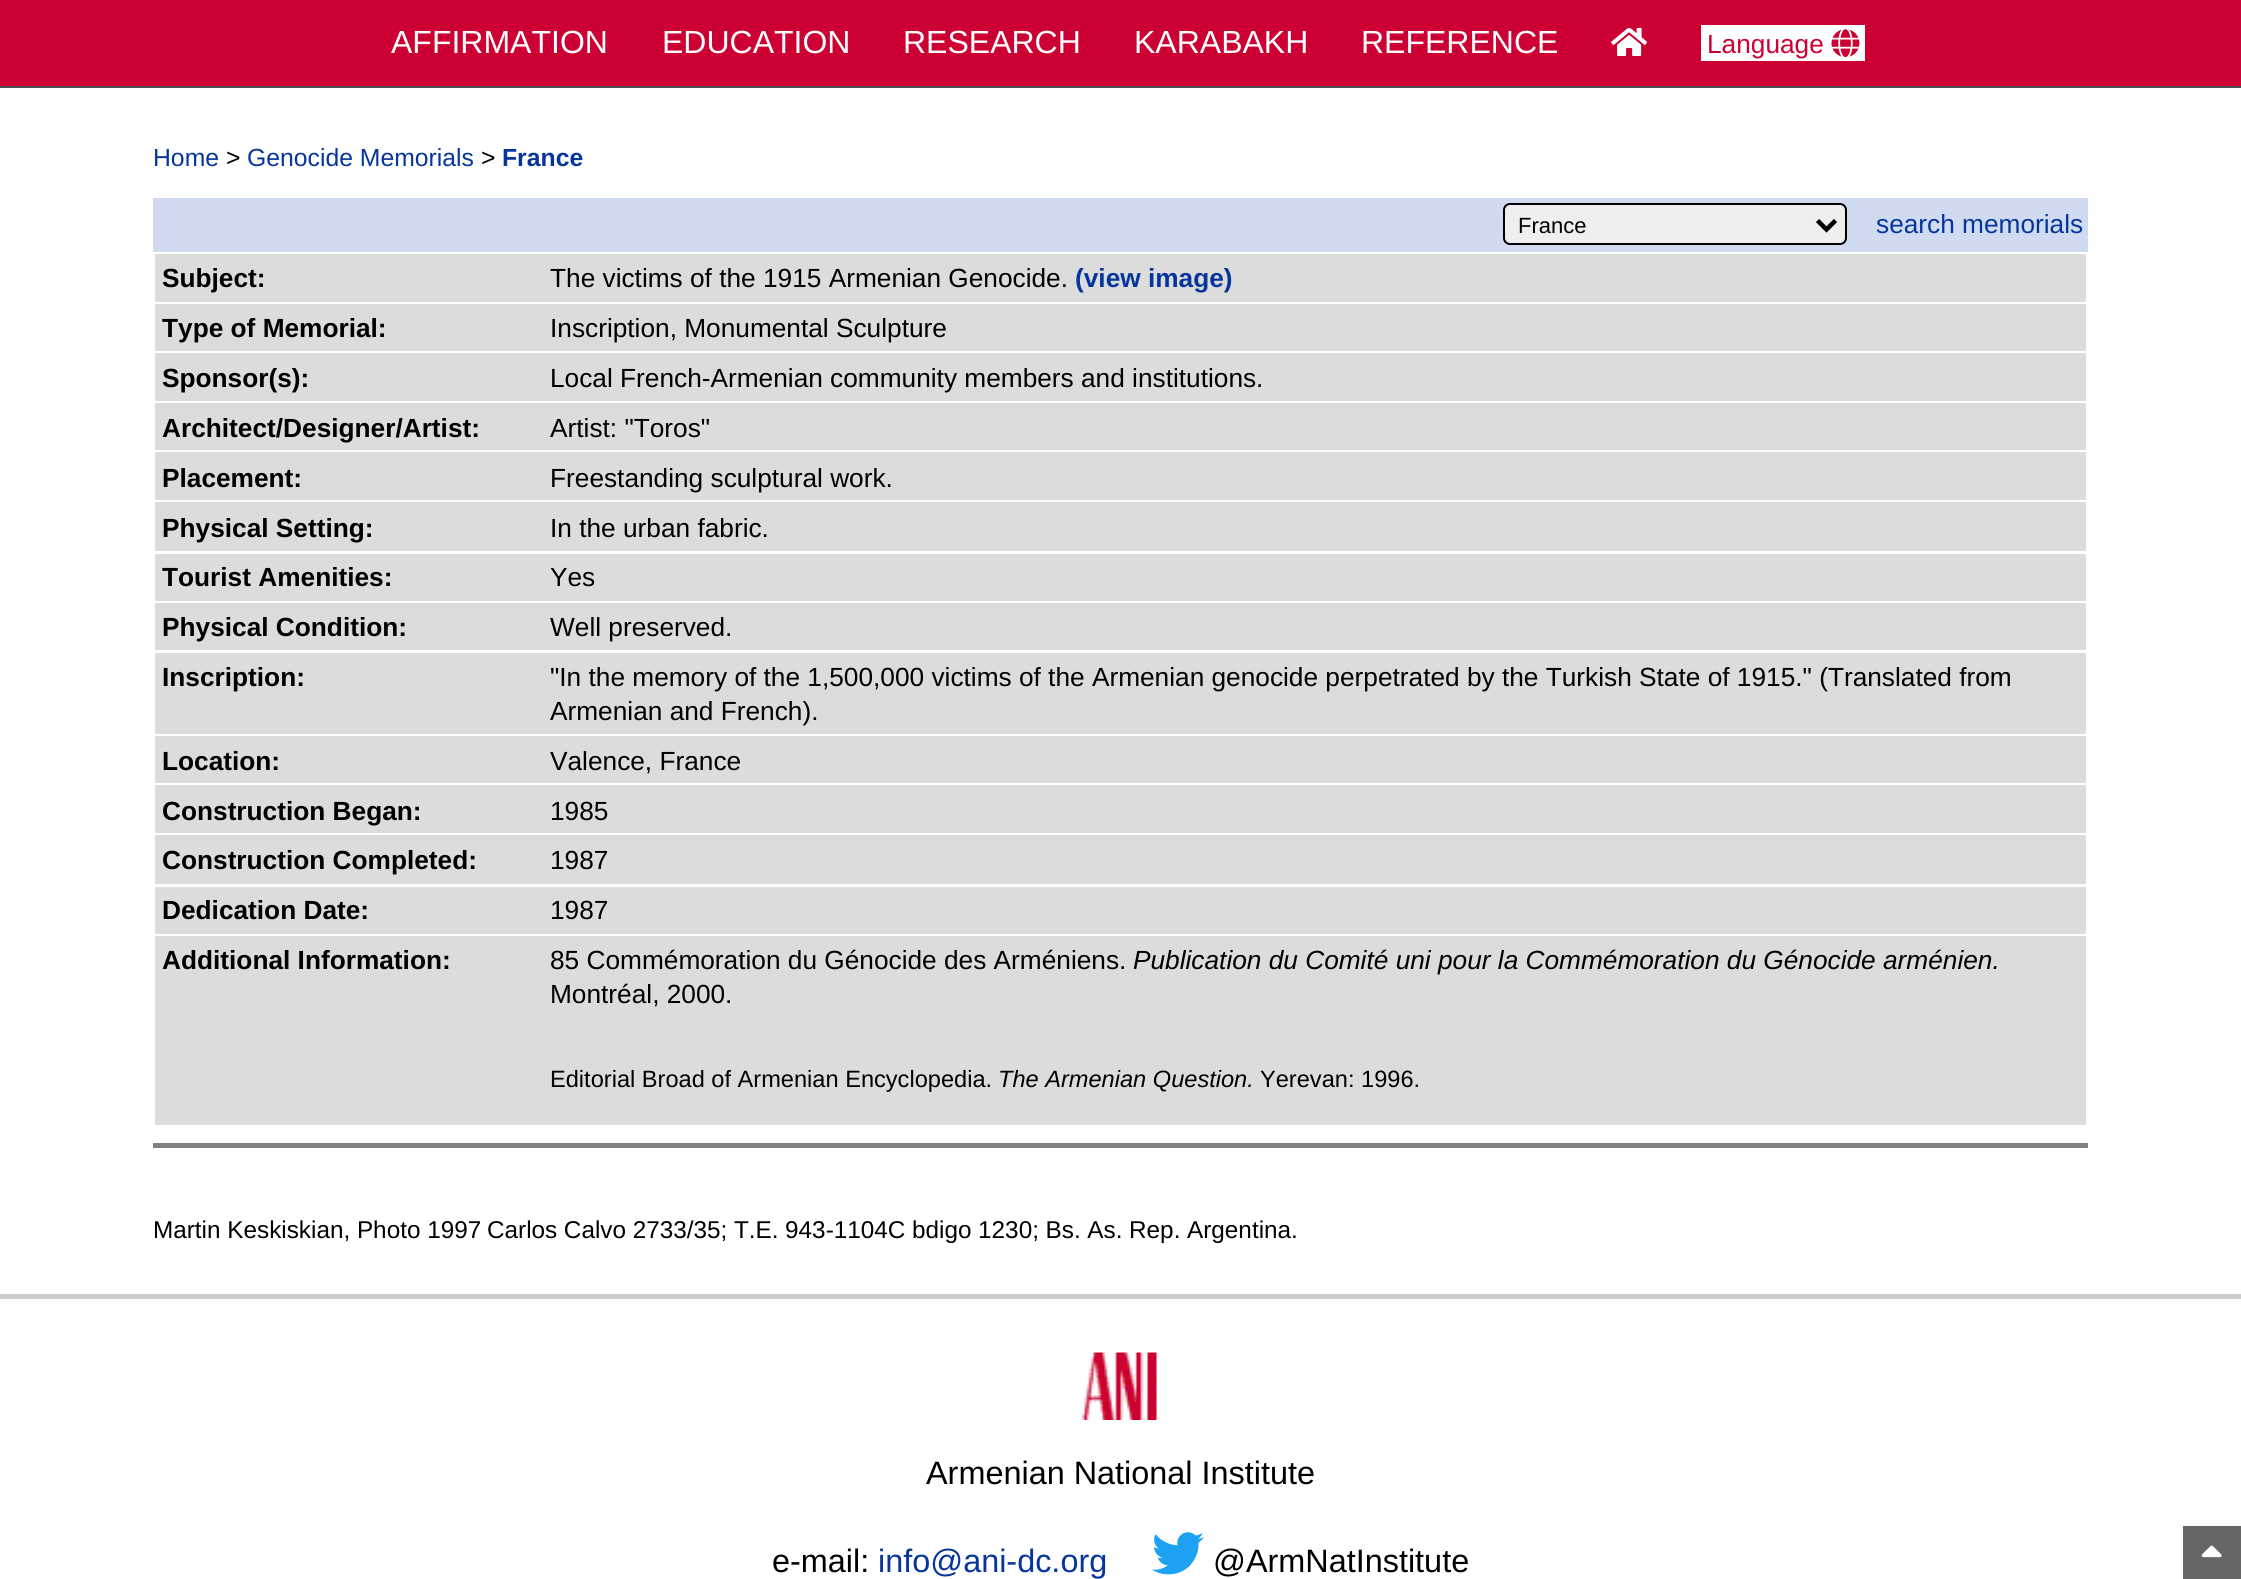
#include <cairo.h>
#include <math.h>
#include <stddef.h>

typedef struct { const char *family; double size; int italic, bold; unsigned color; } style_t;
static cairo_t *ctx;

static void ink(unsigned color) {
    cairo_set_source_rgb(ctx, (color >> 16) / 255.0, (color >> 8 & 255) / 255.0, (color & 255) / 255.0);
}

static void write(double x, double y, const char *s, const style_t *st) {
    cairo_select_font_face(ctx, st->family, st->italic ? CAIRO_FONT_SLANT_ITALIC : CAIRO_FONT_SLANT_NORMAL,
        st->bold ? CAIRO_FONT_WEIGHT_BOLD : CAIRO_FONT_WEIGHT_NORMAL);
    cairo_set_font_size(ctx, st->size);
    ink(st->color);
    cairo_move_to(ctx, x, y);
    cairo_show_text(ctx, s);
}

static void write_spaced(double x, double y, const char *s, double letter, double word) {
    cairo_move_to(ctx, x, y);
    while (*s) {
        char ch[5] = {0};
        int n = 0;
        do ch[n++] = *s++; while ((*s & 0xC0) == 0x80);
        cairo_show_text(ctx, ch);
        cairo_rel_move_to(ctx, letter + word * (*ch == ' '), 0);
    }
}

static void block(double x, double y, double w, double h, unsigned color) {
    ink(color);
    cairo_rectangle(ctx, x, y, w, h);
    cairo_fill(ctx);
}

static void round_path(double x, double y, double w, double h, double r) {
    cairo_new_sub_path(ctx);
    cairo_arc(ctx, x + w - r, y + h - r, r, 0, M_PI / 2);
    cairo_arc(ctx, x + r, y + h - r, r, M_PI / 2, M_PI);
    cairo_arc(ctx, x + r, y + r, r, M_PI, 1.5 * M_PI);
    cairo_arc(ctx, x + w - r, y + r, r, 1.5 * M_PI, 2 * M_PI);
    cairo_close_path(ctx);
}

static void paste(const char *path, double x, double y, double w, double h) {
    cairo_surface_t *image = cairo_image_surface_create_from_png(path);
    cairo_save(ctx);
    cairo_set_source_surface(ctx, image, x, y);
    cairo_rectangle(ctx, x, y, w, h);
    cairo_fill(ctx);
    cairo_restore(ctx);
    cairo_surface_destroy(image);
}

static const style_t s1 = {"Liberation Sans", 32, 0, 0, 0xffffff};
static const style_t s2 = {"Liberation Sans", 26.25, 0, 0, 0xcc0033};
static const style_t s3 = {"Liberation Sans", 24.75, 0, 0, 0x06359c};
static const style_t s4 = {"Liberation Sans", 24.75, 0, 0, 0x000000};
static const style_t s5 = {"Liberation Sans", 24.75, 0, 1, 0x06359c};
static const style_t s6 = {"Liberation Sans", 22, 0, 0, 0x000000};
static const style_t s7 = {"Liberation Sans", 26.25, 0, 0, 0x06359c};
static const style_t s8 = {"Liberation Sans", 26.25, 0, 1, 0x000000};
static const style_t s9 = {"Liberation Sans", 26.25, 0, 0, 0x000000};
static const style_t s10 = {"Liberation Sans", 26.25, 0, 1, 0x06359c};
static const style_t s11 = {"Liberation Sans", 26.25, 1, 0, 0x000000};
static const style_t s12 = {"Liberation Sans", 23.6, 0, 0, 0x000000};
static const style_t s13 = {"Liberation Sans", 23.6, 1, 0, 0x000000};
static const style_t s14 = {"Liberation Sans", 24.3, 0, 0, 0x000000};
static const style_t s15 = {"Liberation Sans", 32.4, 0, 0, 0x000000};
static const style_t s16 = {"Liberation Sans", 32.4, 0, 0, 0x06359c};

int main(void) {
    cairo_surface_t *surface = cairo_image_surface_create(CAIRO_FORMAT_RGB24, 2241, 1579);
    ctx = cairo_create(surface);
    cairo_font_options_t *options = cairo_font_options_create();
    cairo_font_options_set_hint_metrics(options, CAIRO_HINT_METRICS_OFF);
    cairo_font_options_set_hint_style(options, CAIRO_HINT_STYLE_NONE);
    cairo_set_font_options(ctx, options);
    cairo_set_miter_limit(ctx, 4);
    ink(0xffffff);
    cairo_paint(ctx);
    block(0, 0, 2241, 86, 0xcc0033);
    block(0, 86, 2241, 2, 0x4d4d4d);
    write(391, 53, "AFFIRMATION", &s1);
    write(662, 53, "EDUCATION", &s1);
    write(903, 53, "RESEARCH", &s1);
    write(1134, 53, "KARABAKH", &s1);
    write(1361, 53, "REFERENCE", &s1);
    paste("pic1.png", 1611, 27, 37, 29);
    block(1701, 25, 164, 36, 0xffffff);
    write(1707, 53, "Language", &s2);
    paste("pic2.png", 1831, 29, 29, 29);
    write(153, 166, "Home", &s3);
    write(226, 166, ">", &s4);
    write(247, 166, "Genocide Memorials", &s3);
    write(481, 166, ">", &s4);
    write(502, 166, "France", &s5);
    block(153, 198, 1935, 54, 0xd0dbf2);
    ink(0xefefef);
    round_path(1504, 204, 342, 40, 6);
    cairo_fill_preserve(ctx);
    ink(0x000000);
    cairo_stroke(ctx);
    cairo_new_path(ctx);
    cairo_move_to(ctx, 1817.5, 220.5);
    cairo_line_to(ctx, 1826.5, 229.5);
    cairo_line_to(ctx, 1835.5, 220.5);
    cairo_set_line_width(ctx, 4.5);
    cairo_stroke(ctx);
    write(1518, 233, "France", &s6);
    write(1876, 233, "search memorials", &s7);
    block(155, 254, 1931, 48, 0xdcdcdc);
    write(162, 287, "Subject:", &s8);
    write(550, 287, "The victims of the 1915 Armenian Genocide.", &s9);
    write(1075, 287, "(view image)", &s10);
    block(155, 304, 1931, 47, 0xdcdcdc);
    write(162, 337, "Type of Memorial:", &s8);
    write(550, 337, "Inscription, Monumental Sculpture", &s9);
    block(155, 353, 1931, 48, 0xdcdcdc);
    write(162, 387, "Sponsor(s):", &s8);
    write(550, 387, "Local French-Armenian community members and institutions.", &s9);
    block(155, 403, 1931, 47, 0xdcdcdc);
    write(162, 437, "Architect/Designer/Artist:", &s8);
    write(550, 437, "Artist: \"Toros\"", &s9);
    block(155, 452, 1931, 48, 0xdcdcdc);
    write(162, 487, "Placement:", &s8);
    write(550, 487, "Freestanding sculptural work.", &s9);
    block(155, 502, 1931, 49, 0xdcdcdc);
    write(162, 537, "Physical Setting:", &s8);
    write(550, 537, "In the urban fabric.", &s9);
    block(155, 554, 1931, 47, 0xdcdcdc);
    write(162, 586, "Tourist Amenities:", &s8);
    write(550, 586, "Yes", &s9);
    block(155, 603, 1931, 47, 0xdcdcdc);
    write(162, 636, "Physical Condition:", &s8);
    write(550, 636, "Well preserved.", &s9);
    block(155, 653, 1931, 81, 0xdcdcdc);
    write(162, 686, "Inscription:", &s8);
    write(550, 686, "\"In the memory of the 1,500,000 victims of the Armenian genocide perpetrated by the Turkish State of 1915.\" (Translated from", &s9);
    write(550, 720, "Armenian and French).", &s9);
    block(155, 736, 1931, 47, 0xdcdcdc);
    write(162, 770, "Location:", &s8);
    write(550, 770, "Valence, France", &s9);
    block(155, 785, 1931, 48, 0xdcdcdc);
    write(162, 820, "Construction Began:", &s8);
    write(550, 820, "1985", &s9);
    block(155, 835, 1931, 49, 0xdcdcdc);
    write(162, 869, "Construction Completed:", &s8);
    write(550, 869, "1987", &s9);
    block(155, 887, 1931, 47, 0xdcdcdc);
    write(162, 919, "Dedication Date:", &s8);
    write(550, 919, "1987", &s9);
    block(155, 936, 1931, 189, 0xdcdcdc);
    write(162, 969, "Additional Information:", &s8);
    write(550, 969, "85 Commémoration du Génocide des Arméniens.", &s9);
    write(1133, 969, "Publication du Comité uni pour la Commémoration du Génocide arménien.", &s11);
    write(550, 1003, "Montréal, 2000.", &s9);
    write(550, 1087, "Editorial Broad of Armenian Encyclopedia.", &s12);
    write(998, 1087, "The Armenian Question.", &s13);
    write(1260, 1087, "Yerevan: 1996.", &s12);
    block(153, 1143, 1935, 5, 0x808080);
    write(153, 1238, "Martin Keskiskian, Photo 1997", &s14);
    write_spaced(487, 1238, "Carlos Calvo 2733/35; T.E. 943-1104C bdigo 1230; Bs. As. Rep. Argentina.", 0, -0.1);
    block(0, 1294, 2241, 5, 0xcccccc);
    paste("pic3.png", 1082, 1352, 76, 68);
    write(926, 1484, "Armenian National Institute", &s15);
    write(772, 1572, "e-mail:", &s15);
    write(878, 1572, "info@ani-dc.org", &s16);
    paste("pic4.png", 1152, 1532, 52, 43);
    write(1213, 1572, "@ArmNatInstitute", &s15);
    block(2183, 1526, 58, 53, 0x666666);
    paste("pic5.png", 2201, 1545, 21, 13);
    cairo_surface_write_to_png(surface, "screenshot.png");
    cairo_font_options_destroy(options);
    cairo_destroy(ctx);
    cairo_surface_destroy(surface);
    return 0;
}
